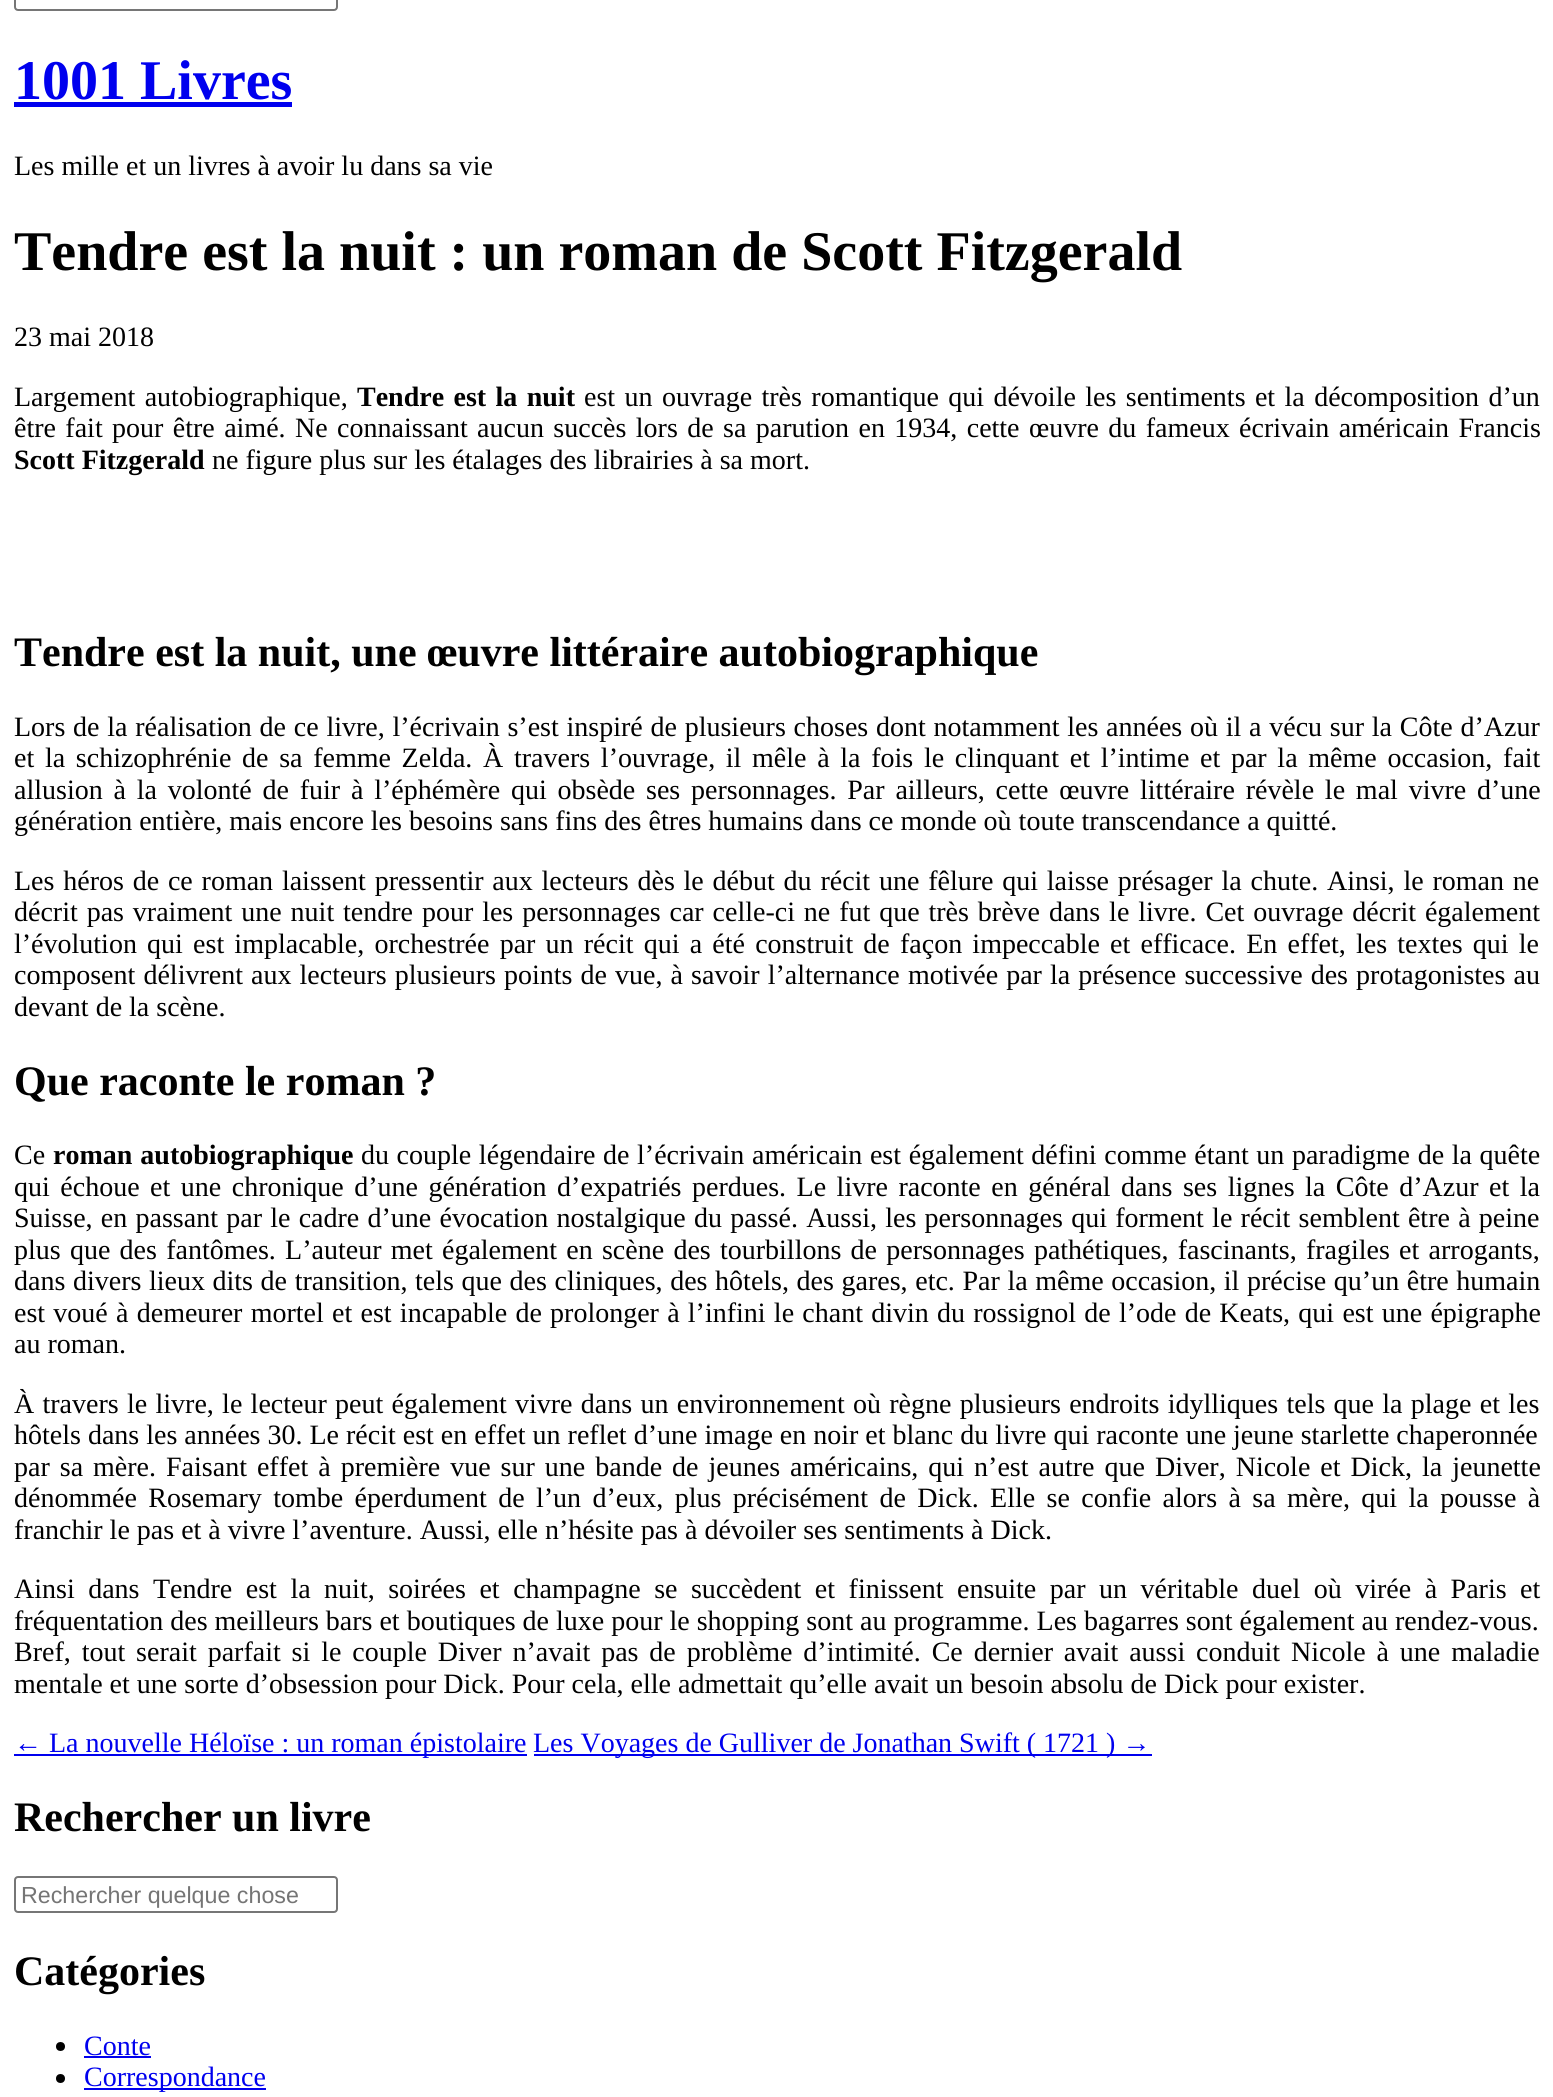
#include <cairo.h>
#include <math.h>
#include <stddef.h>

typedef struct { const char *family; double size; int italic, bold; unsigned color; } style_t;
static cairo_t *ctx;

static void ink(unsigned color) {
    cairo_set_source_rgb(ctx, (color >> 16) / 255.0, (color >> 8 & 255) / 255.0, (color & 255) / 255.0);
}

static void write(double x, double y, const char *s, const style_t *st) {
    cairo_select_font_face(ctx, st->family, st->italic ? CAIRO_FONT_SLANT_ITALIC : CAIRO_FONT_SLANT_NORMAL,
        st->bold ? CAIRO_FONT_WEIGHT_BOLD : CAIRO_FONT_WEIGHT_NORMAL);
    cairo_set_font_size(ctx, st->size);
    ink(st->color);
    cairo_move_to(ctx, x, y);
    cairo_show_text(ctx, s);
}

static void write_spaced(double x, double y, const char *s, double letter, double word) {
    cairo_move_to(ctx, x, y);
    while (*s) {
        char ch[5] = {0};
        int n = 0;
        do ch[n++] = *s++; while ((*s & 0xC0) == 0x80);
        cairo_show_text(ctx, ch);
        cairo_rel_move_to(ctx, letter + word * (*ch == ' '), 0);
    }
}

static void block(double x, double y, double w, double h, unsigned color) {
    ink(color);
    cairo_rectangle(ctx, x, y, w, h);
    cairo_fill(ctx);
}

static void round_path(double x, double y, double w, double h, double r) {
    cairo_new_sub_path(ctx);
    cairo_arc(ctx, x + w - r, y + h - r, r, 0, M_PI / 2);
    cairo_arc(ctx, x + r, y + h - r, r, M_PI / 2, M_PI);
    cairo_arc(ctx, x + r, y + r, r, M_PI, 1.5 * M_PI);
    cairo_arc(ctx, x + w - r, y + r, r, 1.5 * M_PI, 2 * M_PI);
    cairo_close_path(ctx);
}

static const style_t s1 = {"Liberation Serif", 56, 0, 1, 0x0000ee};
static const style_t s2 = {"Liberation Serif", 28, 0, 0, 0x000000};
static const style_t s3 = {"Liberation Serif", 56, 0, 1, 0x000000};
static const style_t s4 = {"Liberation Serif", 28, 0, 1, 0x000000};
static const style_t s5 = {"Liberation Serif", 42, 0, 1, 0x000000};
static const style_t s6 = {"Liberation Serif", 28, 0, 0, 0x0000ee};
static const style_t s7 = {"Liberation Sans", 23.25, 0, 0, 0x757575};

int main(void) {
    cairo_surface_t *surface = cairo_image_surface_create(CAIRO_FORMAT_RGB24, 1553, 2097);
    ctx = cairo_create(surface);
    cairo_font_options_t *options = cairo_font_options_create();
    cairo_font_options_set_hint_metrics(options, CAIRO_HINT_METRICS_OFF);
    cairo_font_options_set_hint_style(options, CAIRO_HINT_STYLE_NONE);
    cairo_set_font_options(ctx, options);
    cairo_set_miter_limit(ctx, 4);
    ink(0xffffff);
    cairo_paint(ctx);
    round_path(15, -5, 322, 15, 3);
    ink(0x767676);
    cairo_stroke(ctx);
    write(14, 99, "1001 Livres", &s1);
    block(14, 102, 278, 5, 0x0000ee);
    write(14, 175, "Les mille et un livres à avoir lu dans sa vie", &s2);
    write(14, 270, "Tendre est la nuit : un roman de Scott Fitzgerald", &s3);
    write(14, 346, "23 mai 2018", &s2);
    write_spaced(14, 406, "Largement autobiographique,", 0, 2.4);
    cairo_select_font_face(ctx, "Liberation Serif", CAIRO_FONT_SLANT_NORMAL, CAIRO_FONT_WEIGHT_BOLD);
    write_spaced(357, 406, "Tendre est la nuit", 0, 2.4);
    cairo_select_font_face(ctx, "Liberation Serif", CAIRO_FONT_SLANT_NORMAL, CAIRO_FONT_WEIGHT_NORMAL);
    write_spaced(584, 406, "est un ouvrage très romantique qui dévoile les sentiments et la décomposition d’un", 0, 2.4);
    write_spaced(14, 437, "être fait pour être aimé. Ne connaissant aucun succès lors de sa parution en 1934, cette œuvre du fameux écrivain américain Francis", 0, 2.4);
    write(14, 469, "Scott Fitzgerald", &s4);
    write(212, 469, "ne figure plus sur les étalages des librairies à sa mort.", &s2);
    write(14, 666, "Tendre est la nuit, une œuvre littéraire autobiographique", &s5);
    cairo_select_font_face(ctx, "Liberation Serif", CAIRO_FONT_SLANT_NORMAL, CAIRO_FONT_WEIGHT_NORMAL);
    cairo_set_font_size(ctx, 28);
    write_spaced(14, 736, "Lors de la réalisation de ce livre, l’écrivain s’est inspiré de plusieurs choses dont notamment les années où il a vécu sur la Côte d’Azur", 0, 0.75);
    write_spaced(14, 767, "et la schizophrénie de sa femme Zelda. À travers l’ouvrage, il mêle à la fois le clinquant et l’intime et par la même occasion, fait", 0, 3.7);
    write_spaced(14, 799, "allusion à la volonté de fuir à l’éphémère qui obsède ses personnages. Par ailleurs, cette œuvre littéraire révèle le mal vivre d’une", 0, 3.8);
    write(14, 830, "génération entière, mais encore les besoins sans fins des êtres humains dans ce monde où toute transcendance a quitté.", &s2);
    write_spaced(14, 890, "Les héros de ce roman laissent pressentir aux lecteurs dès le début du récit une fêlure qui laisse présager la chute. Ainsi, le roman ne", 0, 1.8);
    write_spaced(14, 921, "décrit pas vraiment une nuit tendre pour les personnages car celle-ci ne fut que très brève dans le livre. Cet ouvrage décrit également", 0, 1.9);
    write_spaced(14, 953, "l’évolution qui est implacable, orchestrée par un récit qui a été construit de façon impeccable et efficace. En effet, les textes qui le", 0, 3.2);
    write_spaced(14, 984, "composent délivrent aux lecteurs plusieurs points de vue, à savoir l’alternance motivée par la présence successive des protagonistes au", 0, 1.1);
    write(14, 1016, "devant de la scène.", &s2);
    write(14, 1095, "Que raconte le roman ?", &s5);
    write(14, 1164, "Ce", &s2);
    cairo_select_font_face(ctx, "Liberation Serif", CAIRO_FONT_SLANT_NORMAL, CAIRO_FONT_WEIGHT_BOLD);
    write_spaced(53, 1164, "roman autobiographique", 0, 1);
    cairo_select_font_face(ctx, "Liberation Serif", CAIRO_FONT_SLANT_NORMAL, CAIRO_FONT_WEIGHT_NORMAL);
    write_spaced(361, 1164, "du couple légendaire de l’écrivain américain est également défini comme étant un paradigme de la quête", 0, 0.6);
    write_spaced(14, 1196, "qui échoue et une chronique d’une génération d’expatriés perdues. Le livre raconte en général dans ses lignes la Côte d’Azur et la", 0, 3.5);
    write_spaced(14, 1227, "Suisse, en passant par le cadre d’une évocation nostalgique du passé. Aussi, les personnages qui forment le récit semblent être à peine", 0, 1.25);
    write_spaced(14, 1259, "plus que des fantômes. L’auteur met également en scène des tourbillons de personnages pathétiques, fascinants, fragiles et arrogants,", 0, 2.25);
    write_spaced(14, 1290, "dans divers lieux dits de transition, tels que des cliniques, des hôtels, des gares, etc. Par la même occasion, il précise qu’un être humain", 0, 0.6);
    write_spaced(14, 1322, "est voué à demeurer mortel et est incapable de prolonger à l’infini le chant divin du rossignol de l’ode de Keats, qui est une épigraphe", 0, 1.25);
    write(14, 1353, "au roman.", &s2);
    write_spaced(14, 1413, "À travers le livre, le lecteur peut également vivre dans un environnement où règne plusieurs endroits idylliques tels que la plage et les", 0, 1.3);
    write(14, 1444, "hôtels dans les années 30. Le récit est en effet un reflet d’une image en noir et blanc du livre qui raconte une jeune starlette chaperonnée", &s2);
    write_spaced(14, 1476, "par sa mère. Faisant effet à première vue sur une bande de jeunes américains, qui n’est autre que Diver, Nicole et Dick, la jeunette", 0, 3);
    write_spaced(14, 1507, "dénommée Rosemary tombe éperdument de l’un d’eux, plus précisément de Dick. Elle se confie alors à sa mère, qui la pousse à", 0, 4.4);
    write(14, 1539, "franchir le pas et à vivre l’aventure. Aussi, elle n’hésite pas à dévoiler ses sentiments à Dick.", &s2);
    write_spaced(14, 1598, "Ainsi dans Tendre est la nuit, soirées et champagne se succèdent et finissent ensuite par un véritable duel où virée à Paris et", 0, 6.5);
    write(14, 1630, "fréquentation des meilleurs bars et boutiques de luxe pour le shopping sont au programme. Les bagarres sont également au rendez-vous.", &s2);
    write_spaced(14, 1661, "Bref, tout serait parfait si le couple Diver n’avait pas de problème d’intimité. Ce dernier avait aussi conduit Nicole à une maladie", 0, 3.9);
    write(14, 1693, "mentale et une sorte d’obsession pour Dick. Pour cela, elle admettait qu’elle avait un besoin absolu de Dick pour exister.", &s2);
    block(14, 1754, 513, 2, 0x0000ee);
    write(14, 1752, "← La nouvelle Héloïse : un roman épistolaire", &s6);
    block(534, 1754, 618, 2, 0x0000ee);
    write(533, 1752, "Les Voyages de Gulliver de Jonathan Swift ( 1721 ) →", &s6);
    write(14, 1831, "Rechercher un livre", &s5);
    round_path(15, 1877, 322, 35, 3);
    ink(0x767676);
    cairo_stroke(ctx);
    write(21, 1903, "Rechercher quelque chose", &s7);
    write(14, 1985, "Catégories", &s5);
    cairo_new_path(ctx);
    cairo_arc(ctx, 60.5, 2046.5, 4.5, 0, 2 * M_PI);
    cairo_fill(ctx);
    write(84, 2055, "Conte", &s6);
    block(84, 2056, 67, 2, 0x0000ee);
    ink(0x000000);
    cairo_new_path(ctx);
    cairo_arc(ctx, 60.5, 2078.5, 4.5, 0, 2 * M_PI);
    cairo_fill(ctx);
    block(84, 2088, 182, 2, 0x0000ee);
    write(84, 2086, "Correspondance", &s6);
    cairo_surface_write_to_png(surface, "screenshot.png");
    cairo_font_options_destroy(options);
    cairo_destroy(ctx);
    cairo_surface_destroy(surface);
    return 0;
}
